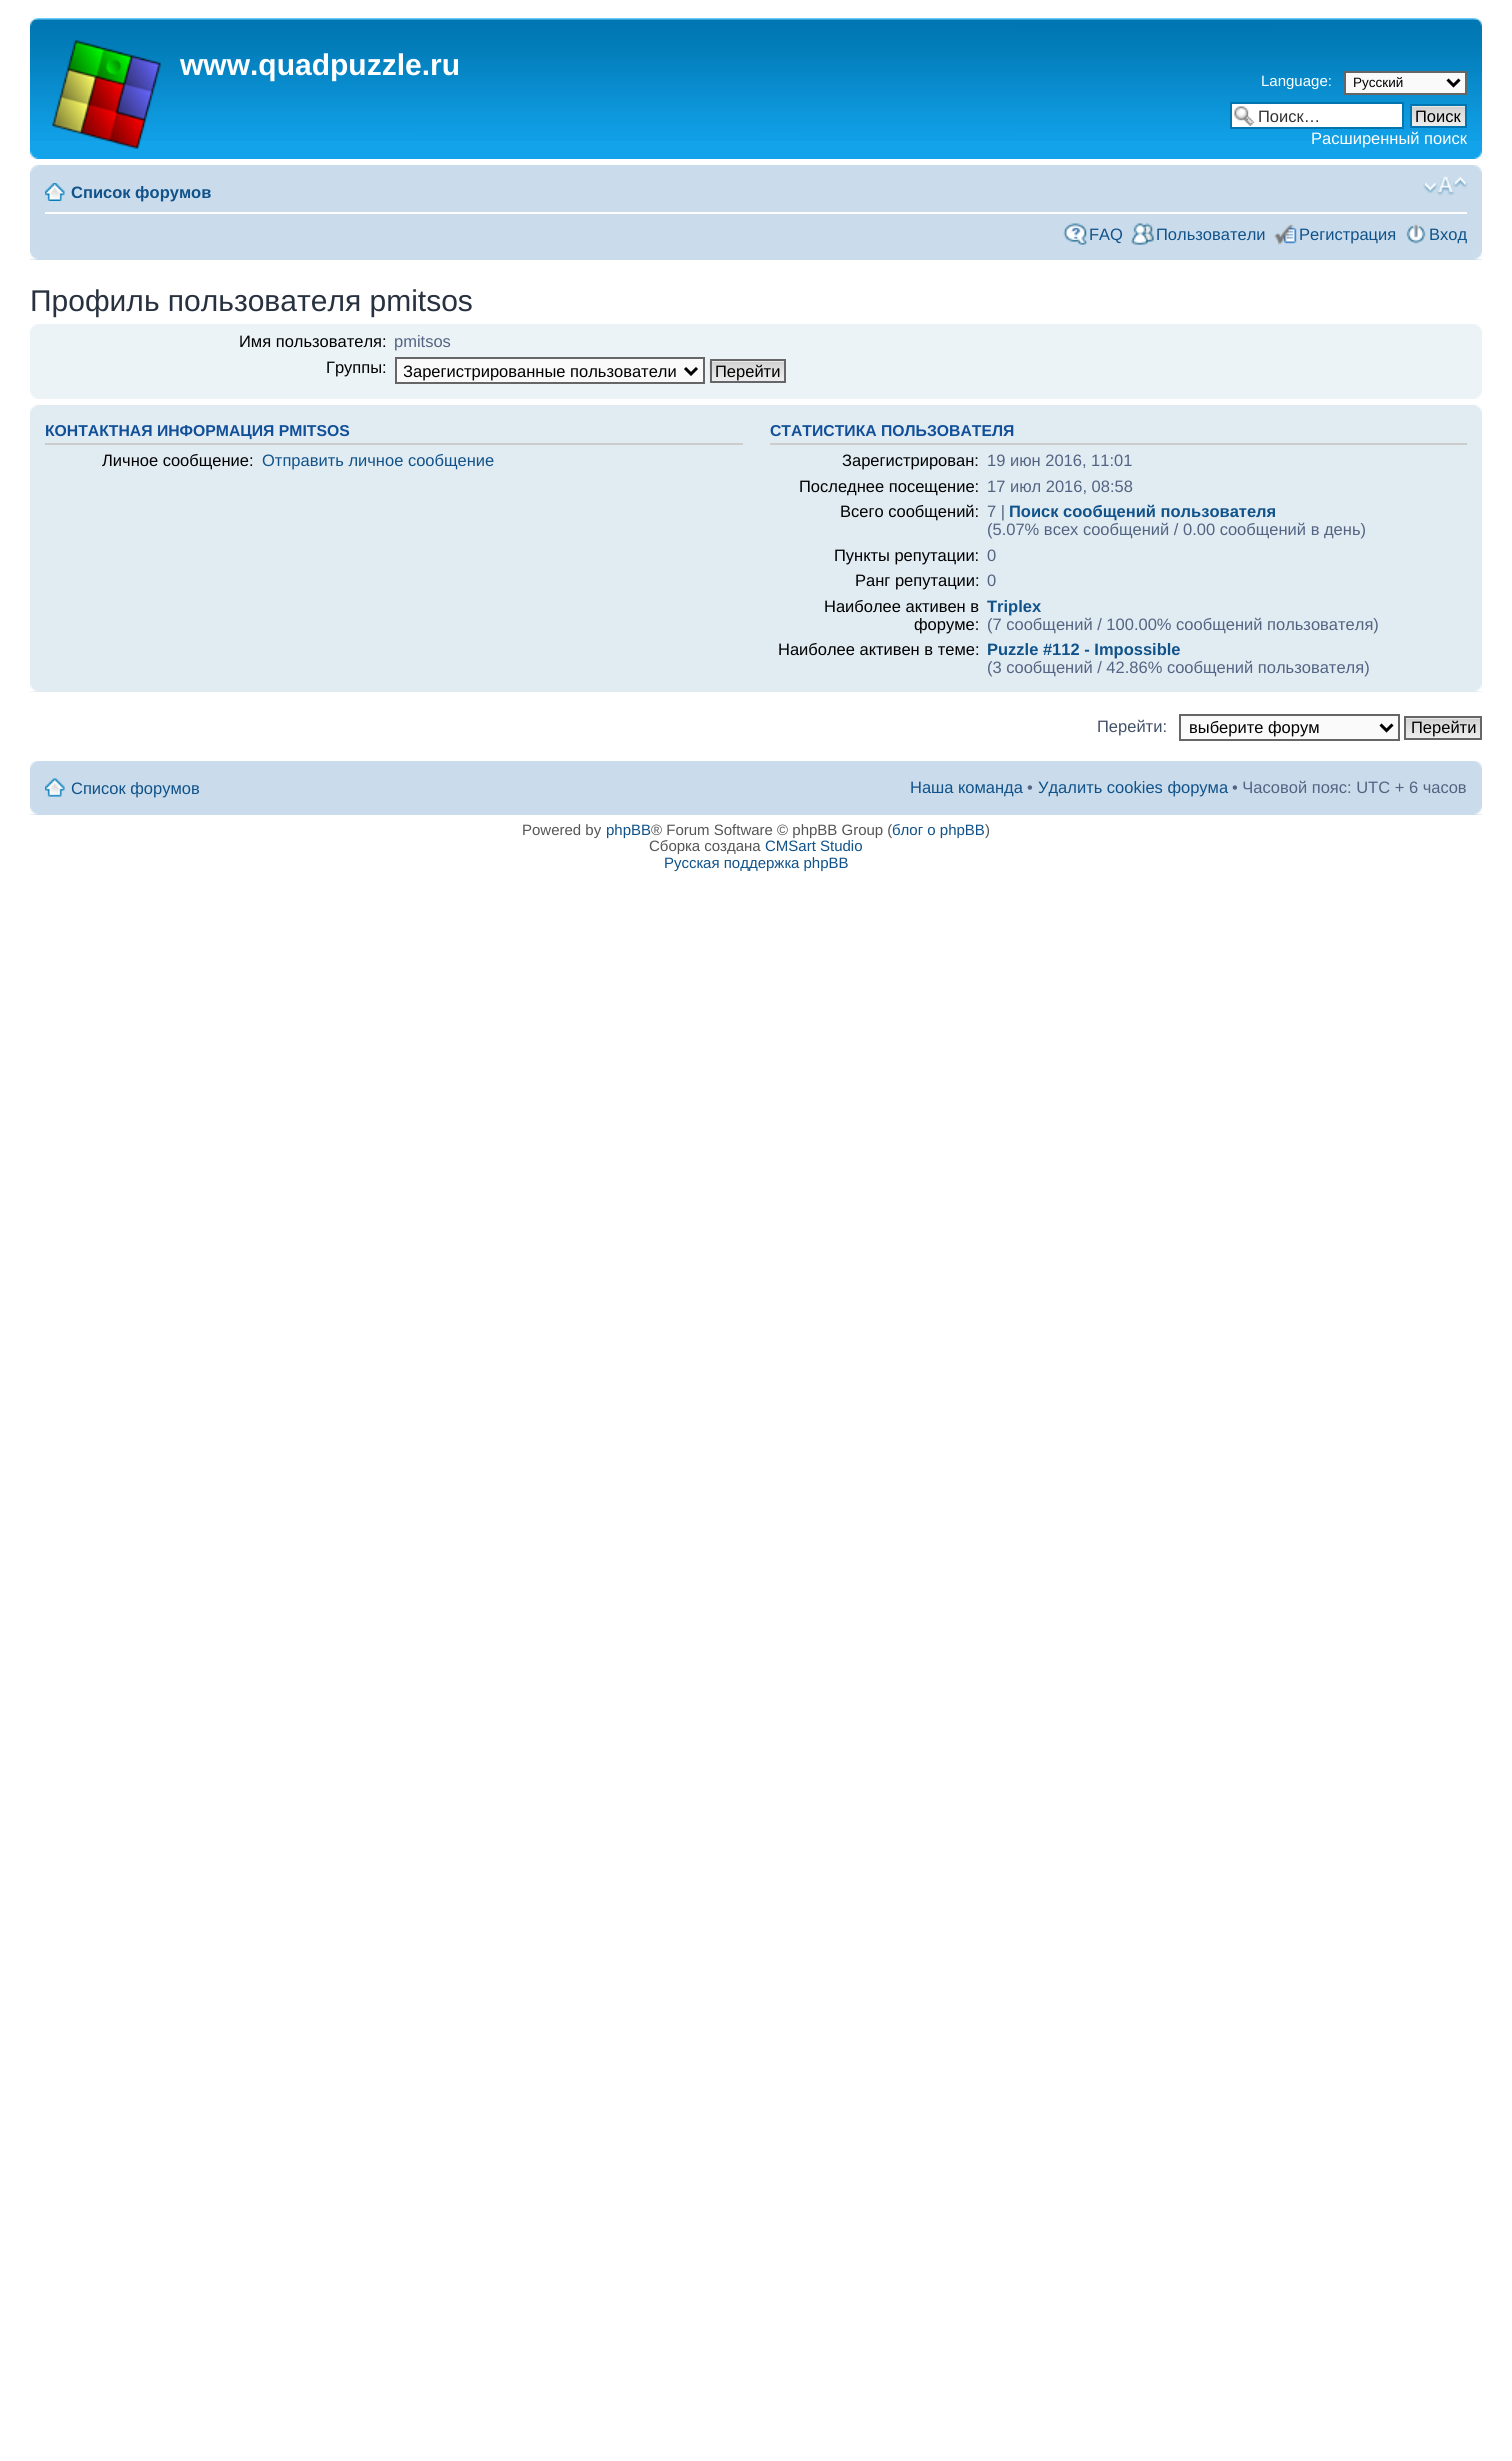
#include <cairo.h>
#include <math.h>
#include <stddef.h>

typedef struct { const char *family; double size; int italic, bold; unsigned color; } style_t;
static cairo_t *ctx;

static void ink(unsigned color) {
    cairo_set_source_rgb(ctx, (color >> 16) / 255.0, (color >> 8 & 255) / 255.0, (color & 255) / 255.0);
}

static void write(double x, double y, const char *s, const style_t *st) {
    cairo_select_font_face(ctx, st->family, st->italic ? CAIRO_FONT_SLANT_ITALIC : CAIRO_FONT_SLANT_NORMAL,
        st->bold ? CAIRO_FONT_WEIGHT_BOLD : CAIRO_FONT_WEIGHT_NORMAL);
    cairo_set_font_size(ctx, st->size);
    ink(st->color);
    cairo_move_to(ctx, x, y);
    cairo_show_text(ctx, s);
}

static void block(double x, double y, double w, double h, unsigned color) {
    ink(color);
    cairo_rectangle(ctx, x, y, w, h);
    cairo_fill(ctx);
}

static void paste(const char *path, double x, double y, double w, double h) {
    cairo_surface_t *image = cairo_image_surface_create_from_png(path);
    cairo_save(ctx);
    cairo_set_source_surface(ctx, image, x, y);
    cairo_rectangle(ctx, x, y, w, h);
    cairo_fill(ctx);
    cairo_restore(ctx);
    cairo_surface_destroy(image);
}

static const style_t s1 = {"Liberation Sans", 30, 0, 1, 0xffffff};
static const style_t s2 = {"Liberation Sans", 15, 0, 0, 0xffffff};
static const style_t s3 = {"Liberation Sans", 13.5, 0, 0, 0x000000};
static const style_t s4 = {"Liberation Sans", 16.5, 0, 0, 0x333333};
static const style_t s5 = {"Liberation Sans", 16.5, 0, 0, 0x000000};
static const style_t s6 = {"Liberation Sans", 16.5, 0, 0, 0xffffff};
static const style_t s7 = {"Liberation Sans", 16.5, 0, 1, 0x105289};
static const style_t s8 = {"Liberation Sans", 16.5, 0, 0, 0x105289};
static const style_t s9 = {"Liberation Sans", 30, 0, 0, 0x28313f};
static const style_t s10 = {"Liberation Sans", 16.5, 0, 0, 0x536482};
static const style_t s11 = {"Liberation Sans", 15.75, 0, 1, 0x115098};
static const style_t s12 = {"Liberation Sans", 16.5, 0, 0, 0x425067};
static const style_t s13 = {"Liberation Sans", 15, 0, 0, 0x555555};
static const style_t s14 = {"Liberation Sans", 15, 0, 0, 0x105289};

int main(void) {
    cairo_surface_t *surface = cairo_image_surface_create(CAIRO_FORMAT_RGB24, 1512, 2461);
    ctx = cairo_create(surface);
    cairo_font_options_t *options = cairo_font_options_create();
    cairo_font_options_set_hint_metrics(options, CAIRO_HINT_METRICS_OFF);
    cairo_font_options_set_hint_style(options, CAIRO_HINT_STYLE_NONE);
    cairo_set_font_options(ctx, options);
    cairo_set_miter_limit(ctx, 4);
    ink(0xffffff);
    cairo_paint(ctx);
    block(30, 141, 1452, 18, 0x12a3eb);
    paste("pic1.png", 30, 18, 1452, 123);
    paste("pic2.png", 30, 18, 8, 8);
    paste("pic3.png", 1474, 18, 8, 8);
    paste("pic4.png", 52, 40, 109, 109);
    write(180, 75, "www.quadpuzzle.ru", &s1);
    write(1261, 86, "Language:", &s2);
    ink(0xfafafa);
    cairo_rectangle(ctx, 1345, 72, 121, 22);
    cairo_fill_preserve(ctx);
    ink(0x666666);
    cairo_stroke(ctx);
    cairo_new_path(ctx);
    cairo_move_to(ctx, 1447.5, 79.5);
    cairo_line_to(ctx, 1453.5, 85.5);
    cairo_line_to(ctx, 1459.5, 79.5);
    ink(0x000000);
    cairo_set_line_width(ctx, 3);
    cairo_stroke(ctx);
    write(1353, 87, "Русский", &s3);
    block(1232, 104, 170, 23, 0xffffff);
    paste("pic5.png", 1234, 106, 21, 20);
    cairo_rectangle(ctx, 1231, 103, 172, 25);
    ink(0x0075b0);
    cairo_set_line_width(ctx, 2);
    cairo_stroke(ctx);
    write(1258, 122, "Поиск…", &s4);
    paste("pic6.png", 1412, 106, 53, 20);
    cairo_rectangle(ctx, 1411, 105, 55, 22);
    ink(0x0075b0);
    cairo_stroke(ctx);
    write(1415, 122, "Поиск", &s5);
    write(1311, 144, "Расширенный поиск", &s6);
    paste("pic7.png", 30, 151, 8, 8);
    paste("pic8.png", 1474, 151, 8, 8);
    block(30, 165, 1452, 95, 0xcadceb);
    paste("pic9.png", 30, 165, 8, 8);
    paste("pic10.png", 1474, 165, 8, 8);
    block(45, 212, 1422, 2, 0xffffff);
    paste("pic11.png", 45, 183, 20, 18);
    write(71, 198, "Список форумов", &s7);
    paste("pic12.png", 1423, 176, 44, 20);
    paste("pic13.png", 1063, 223, 25, 22);
    write(1089, 240, "FAQ", &s8);
    paste("pic14.png", 1131, 223, 24, 22);
    write(1156, 240, "Пользователи", &s8);
    paste("pic15.png", 1274, 224, 23, 21);
    write(1299, 240, "Регистрация", &s8);
    paste("pic16.png", 1406, 224, 20, 20);
    write(1429, 240, "Вход", &s8);
    paste("pic17.png", 30, 252, 8, 8);
    paste("pic18.png", 1474, 252, 8, 8);
    write(30, 311, "Профиль пользователя pmitsos", &s9);
    block(30, 324, 1452, 75, 0xecf3f7);
    paste("pic19.png", 30, 324, 7, 7);
    paste("pic20.png", 1475, 324, 7, 7);
    write(239, 347, "Имя пользователя:", &s5);
    write(394, 347, "pmitsos", &s10);
    write(326, 373, "Группы:", &s5);
    ink(0xfafafa);
    cairo_rectangle(ctx, 396, 358, 308, 25);
    cairo_fill_preserve(ctx);
    ink(0x666666);
    cairo_stroke(ctx);
    cairo_new_path(ctx);
    cairo_move_to(ctx, 685, 368);
    cairo_line_to(ctx, 691, 374);
    cairo_line_to(ctx, 697, 368);
    ink(0x000000);
    cairo_set_line_width(ctx, 3);
    cairo_stroke(ctx);
    cairo_save(ctx);
    cairo_rectangle(ctx, 404, 360, 274, 21);
    cairo_clip(ctx);
    write(403, 377, "Зарегистрированные пользователи", &s5);
    cairo_restore(ctx);
    paste("pic21.png", 709, 360, 75, 23);
    cairo_rectangle(ctx, 711, 360, 74, 22);
    ink(0x666666);
    cairo_set_line_width(ctx, 2);
    cairo_stroke(ctx);
    write(715, 377, "Перейти", &s5);
    paste("pic22.png", 30, 392, 7, 7);
    paste("pic23.png", 1475, 392, 7, 7);
    block(30, 405, 1452, 287, 0xe1ebf2);
    paste("pic24.png", 30, 405, 7, 7);
    paste("pic25.png", 1475, 405, 7, 7);
    block(45, 443, 698, 2, 0xcccccc);
    write(45, 436, "КОНТАКТНАЯ ИНФОРМАЦИЯ PMITSOS", &s11);
    write(102, 466, "Личное сообщение:", &s5);
    write(262, 466, "Отправить личное сообщение", &s8);
    block(770, 443, 697, 2, 0xcccccc);
    write(770, 436, "СТАТИСТИКА ПОЛЬЗОВАТЕЛЯ", &s11);
    write(842, 466, "Зарегистрирован:", &s5);
    write(987, 466, "19 июн 2016, 11:01", &s10);
    write(799, 492, "Последнее посещение:", &s5);
    write(987, 492, "17 июл 2016, 08:58", &s10);
    write(840, 517, "Всего сообщений:", &s5);
    write(987, 517, "7 |", &s10);
    write(1009, 517, "Поиск сообщений пользователя", &s7);
    write(987, 535, "(5.07% всех сообщений / 0.00 сообщений в день)", &s10);
    write(834, 561, "Пункты репутации:", &s5);
    write(987, 561, "0", &s10);
    write(855, 586, "Ранг репутации:", &s5);
    write(987, 586, "0", &s10);
    write(824, 612, "Наиболее активен в", &s5);
    write(914, 630, "форуме:", &s5);
    write(987, 612, "Triplex", &s7);
    write(987, 630, "(7 сообщений / 100.00% сообщений пользователя)", &s10);
    write(778, 655, "Наиболее активен в теме:", &s5);
    write(987, 655, "Puzzle #112 - Impossible", &s7);
    write(987, 673, "(3 сообщений / 42.86% сообщений пользователя)", &s10);
    paste("pic26.png", 30, 684, 7, 8);
    paste("pic27.png", 1475, 684, 7, 8);
    write(1097, 732, "Перейти:", &s12);
    ink(0xfafafa);
    cairo_rectangle(ctx, 1180, 715, 219, 25);
    cairo_fill_preserve(ctx);
    ink(0x666666);
    cairo_stroke(ctx);
    cairo_new_path(ctx);
    cairo_move_to(ctx, 1380.5, 724.5);
    cairo_line_to(ctx, 1386.5, 730.5);
    cairo_line_to(ctx, 1392.5, 724.5);
    ink(0x000000);
    cairo_set_line_width(ctx, 3);
    cairo_stroke(ctx);
    write(1189, 733, "выберите форум", &s5);
    paste("pic28.png", 1406, 718, 74, 20);
    cairo_rectangle(ctx, 1405, 717, 76, 22);
    ink(0x666666);
    cairo_set_line_width(ctx, 2);
    cairo_stroke(ctx);
    write(1411, 733, "Перейти", &s5);
    block(30, 761, 1452, 54, 0xcadceb);
    paste("pic29.png", 30, 761, 8, 7);
    paste("pic30.png", 1474, 761, 8, 7);
    paste("pic31.png", 45, 778, 20, 19);
    write(71, 794, "Список форумов", &s8);
    write(910, 793, "Наша команда", &s8);
    write(1027, 793, "•", &s10);
    write(1038, 793, "Удалить cookies форума", &s8);
    write(1232, 793, "• Часовой пояс: UTC + 6 часов", &s10);
    paste("pic17.png", 30, 807, 8, 8);
    paste("pic18.png", 1474, 807, 8, 8);
    write(522, 835, "Powered by", &s13);
    write(606, 835, "phpBB", &s14);
    write(651, 835, "® Forum Software © phpBB Group (", &s13);
    write(892, 835, "блог о phpBB", &s14);
    write(985, 835, ")", &s13);
    write(649, 851, "Сборка создана", &s13);
    write(765, 851, "CMSart Studio", &s14);
    write(664, 868, "Русская поддержка phpBB", &s14);
    cairo_surface_write_to_png(surface, "screenshot.png");
    cairo_font_options_destroy(options);
    cairo_destroy(ctx);
    cairo_surface_destroy(surface);
    return 0;
}
